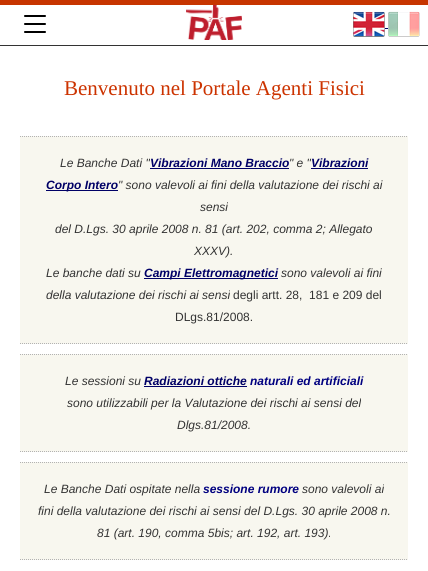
#include <cairo.h>
#include <math.h>
#include <stddef.h>

typedef struct { const char *family; double size; int italic, bold; unsigned color; } style_t;
static cairo_t *ctx;

static void ink(unsigned color) {
    cairo_set_source_rgb(ctx, (color >> 16) / 255.0, (color >> 8 & 255) / 255.0, (color & 255) / 255.0);
}

static void write(double x, double y, const char *s, const style_t *st) {
    cairo_select_font_face(ctx, st->family, st->italic ? CAIRO_FONT_SLANT_ITALIC : CAIRO_FONT_SLANT_NORMAL,
        st->bold ? CAIRO_FONT_WEIGHT_BOLD : CAIRO_FONT_WEIGHT_NORMAL);
    cairo_set_font_size(ctx, st->size);
    ink(st->color);
    cairo_move_to(ctx, x, y);
    cairo_show_text(ctx, s);
}

static void block(double x, double y, double w, double h, unsigned color) {
    ink(color);
    cairo_rectangle(ctx, x, y, w, h);
    cairo_fill(ctx);
}

static void paste(const char *path, double x, double y, double w, double h) {
    cairo_surface_t *image = cairo_image_surface_create_from_png(path);
    cairo_save(ctx);
    cairo_set_source_surface(ctx, image, x, y);
    cairo_rectangle(ctx, x, y, w, h);
    cairo_fill(ctx);
    cairo_restore(ctx);
    cairo_surface_destroy(image);
}

static const style_t s1 = {"Liberation Serif", 21, 0, 0, 0xcc3300};
static const style_t s2 = {"Liberation Sans", 12, 1, 0, 0x333333};
static const style_t s3 = {"Liberation Sans", 12, 1, 1, 0x000066};
static const style_t s4 = {"Liberation Sans", 12, 0, 0, 0x333333};
static const style_t s5 = {"Liberation Sans", 12, 1, 1, 0x000080};

int main(void) {
    cairo_surface_t *surface = cairo_image_surface_create(CAIRO_FORMAT_RGB24, 428, 571);
    ctx = cairo_create(surface);
    cairo_font_options_t *options = cairo_font_options_create();
    cairo_font_options_set_hint_metrics(options, CAIRO_HINT_METRICS_OFF);
    cairo_font_options_set_hint_style(options, CAIRO_HINT_STYLE_NONE);
    cairo_set_font_options(ctx, options);
    cairo_set_miter_limit(ctx, 4);
    ink(0xffffff);
    cairo_paint(ctx);
    block(0, 0, 428, 5, 0xc73500);
    block(0, 45, 428, 1, 0x333333);
    paste("pic1.png", 24, 15, 22, 18);
    paste("pic2.png", 186, 5, 56, 35);
    paste("pic3.png", 353, 11, 32, 26);
    block(385, 28, 3, 1, 0x000066);
    paste("pic4.png", 388, 11, 32, 26);
    write(64, 95, "Benvenuto nel Portale Agenti Fisici", &s1);
    block(20, 136, 388, 208, 0xf8f7ef);
    cairo_new_path(ctx);
    cairo_move_to(ctx, 20, 136.5);
    cairo_line_to(ctx, 408, 136.5);
    ink(0xb2b2b2);
    cairo_set_line_width(ctx, 1);
    cairo_set_dash(ctx, (double[]){1, 1}, 2, 0);
    cairo_stroke(ctx);
    cairo_new_path(ctx);
    cairo_move_to(ctx, 20, 343.5);
    cairo_line_to(ctx, 408, 343.5);
    cairo_stroke(ctx);
    write(60, 167, "Le Banche Dati \"", &s2);
    block(150, 168, 139, 1, 0x000066);
    write(150, 167, "Vibrazioni Mano Braccio", &s3);
    write(289, 167, "\" e \"", &s2);
    block(311, 168, 57, 1, 0x000066);
    write(311, 167, "Vibrazioni", &s3);
    block(46, 190, 72, 1, 0x000066);
    write(46, 189, "Corpo Intero", &s3);
    write(118, 189, "\" sono valevoli ai fini della valutazione dei rischi ai", &s2);
    write(200, 211, "sensi", &s2);
    write(55, 233, "del D.Lgs. 30 aprile 2008 n. 81 (art. 202, comma 2; Allegato", &s2);
    write(194, 255, "XXXV).", &s2);
    write(46, 277, "Le banche dati su", &s2);
    block(144, 278, 134, 1, 0x000066);
    write(144, 277, "Campi Elettromagnetici", &s3);
    write(281, 277, "sono valevoli ai fini", &s2);
    write(46, 299, "della valutazione dei rischi ai sensi", &s2);
    write(233, 299, "degli artt. 28,  181 e 209 del", &s4);
    write(175, 321, "DLgs.81/2008.", &s4);
    block(20, 354, 388, 98, 0xf8f7ef);
    cairo_new_path(ctx);
    cairo_move_to(ctx, 20, 354.5);
    cairo_line_to(ctx, 408, 354.5);
    ink(0xb2b2b2);
    cairo_stroke(ctx);
    cairo_new_path(ctx);
    cairo_move_to(ctx, 20, 451.5);
    cairo_line_to(ctx, 408, 451.5);
    cairo_stroke(ctx);
    write(65, 385, "Le sessioni su", &s2);
    write(144, 385, "Radiazioni ottiche", &s3);
    block(144, 386, 103, 1, 0x000066);
    write(250, 385, "naturali ed artificiali", &s5);
    write(67, 407, "sono utilizzabili per la Valutazione dei rischi ai sensi del", &s2);
    write(177, 429, "Dlgs.81/2008.", &s2);
    block(20, 462, 388, 98, 0xf8f7ef);
    cairo_new_path(ctx);
    cairo_move_to(ctx, 20, 462.5);
    cairo_line_to(ctx, 408, 462.5);
    ink(0xb2b2b2);
    cairo_stroke(ctx);
    cairo_new_path(ctx);
    cairo_move_to(ctx, 20, 559.5);
    cairo_line_to(ctx, 408, 559.5);
    cairo_stroke(ctx);
    write(44, 493, "Le Banche Dati ospitate nella", &s2);
    write(203, 493, "sessione rumore", &s5);
    write(302, 493, "sono valevoli ai", &s2);
    write(38, 515, "fini della valutazione dei rischi ai sensi del D.Lgs. 30 aprile 2008 n.", &s2);
    write(97, 537, "81 (art. 190, comma 5bis; art. 192, art. 193).", &s2);
    cairo_surface_write_to_png(surface, "screenshot.png");
    cairo_font_options_destroy(options);
    cairo_destroy(ctx);
    cairo_surface_destroy(surface);
    return 0;
}
